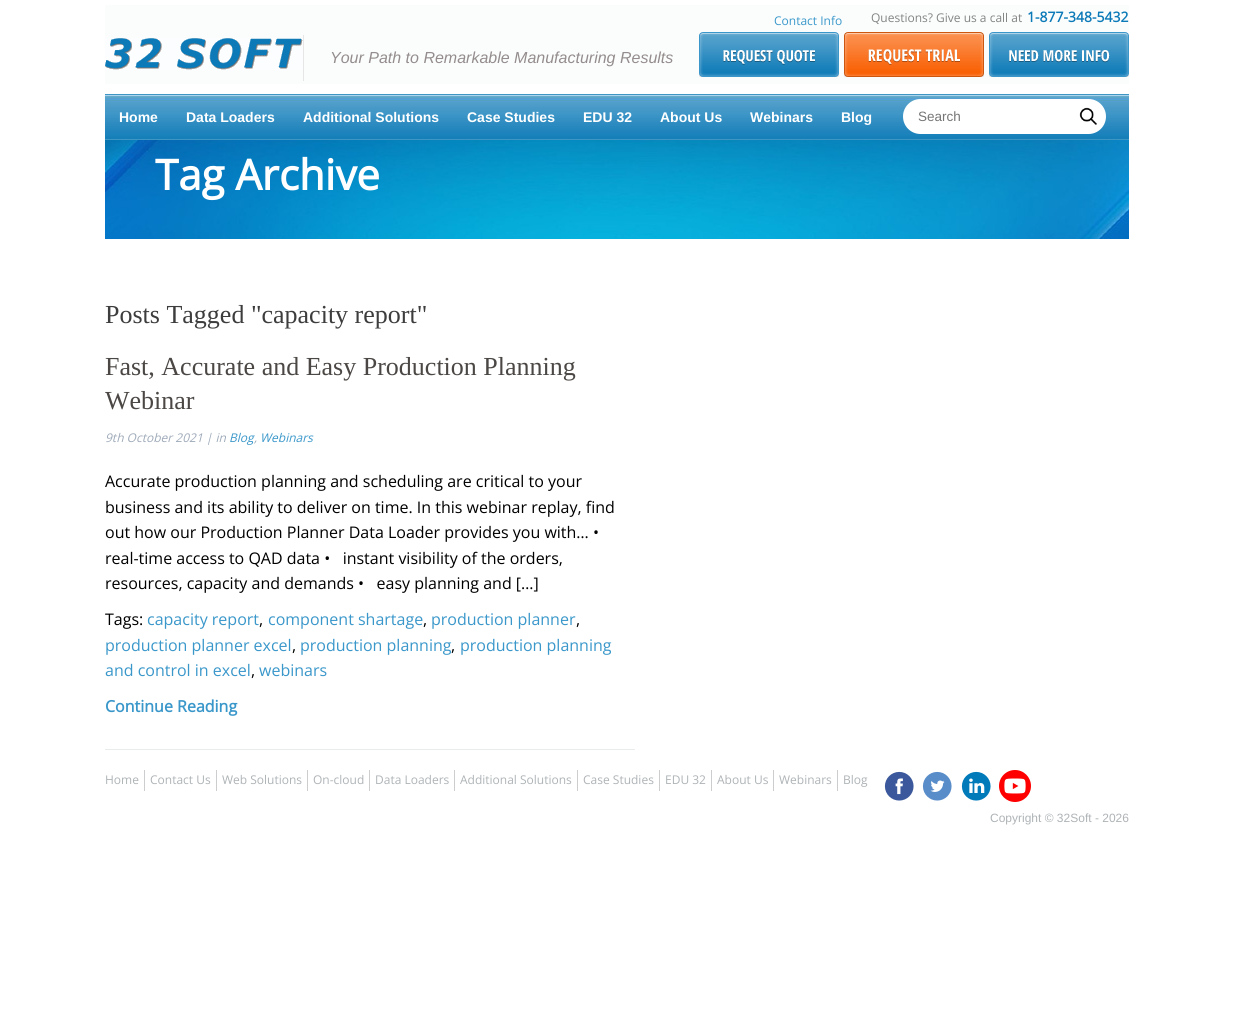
#include <cairo.h>
#include <math.h>
#include <stddef.h>

typedef struct { const char *family; double size; int italic, bold; unsigned color; } style_t;
static cairo_t *ctx;

static void ink(unsigned color) {
    cairo_set_source_rgb(ctx, (color >> 16) / 255.0, (color >> 8 & 255) / 255.0, (color & 255) / 255.0);
}

static void write(double x, double y, const char *s, const style_t *st) {
    cairo_select_font_face(ctx, st->family, st->italic ? CAIRO_FONT_SLANT_ITALIC : CAIRO_FONT_SLANT_NORMAL,
        st->bold ? CAIRO_FONT_WEIGHT_BOLD : CAIRO_FONT_WEIGHT_NORMAL);
    cairo_set_font_size(ctx, st->size);
    ink(st->color);
    cairo_move_to(ctx, x, y);
    cairo_show_text(ctx, s);
}

static void block(double x, double y, double w, double h, unsigned color) {
    ink(color);
    cairo_rectangle(ctx, x, y, w, h);
    cairo_fill(ctx);
}

static void round_path(double x, double y, double w, double h, double r) {
    cairo_new_sub_path(ctx);
    cairo_arc(ctx, x + w - r, y + h - r, r, 0, M_PI / 2);
    cairo_arc(ctx, x + r, y + h - r, r, M_PI / 2, M_PI);
    cairo_arc(ctx, x + r, y + r, r, M_PI, 1.5 * M_PI);
    cairo_arc(ctx, x + w - r, y + r, r, 1.5 * M_PI, 2 * M_PI);
    cairo_close_path(ctx);
}

static void paste(const char *path, double x, double y, double w, double h) {
    cairo_surface_t *image = cairo_image_surface_create_from_png(path);
    cairo_save(ctx);
    cairo_set_source_surface(ctx, image, x, y);
    cairo_rectangle(ctx, x, y, w, h);
    cairo_fill(ctx);
    cairo_restore(ctx);
    cairo_surface_destroy(image);
}

static const style_t s1 = {"Open Sans", 12, 0, 0, 0x3a97ca};
static const style_t s2 = {"Open Sans", 12, 0, 0, 0x838383};
static const style_t s3 = {"Open Sans", 14, 0, 1, 0x0c7ab8};
static const style_t s4 = {"Liberation Sans", 16, 1, 0, 0x958d8d};
static const style_t s5 = {"Liberation Sans", 14, 0, 1, 0xffffff};
static const style_t s6 = {"Liberation Sans", 13.5, 0, 0, 0x757575};
static const style_t s7 = {"Open Sans", 42, 0, 1, 0xffffff};
static const style_t s8 = {"Liberation Serif", 26, 0, 0, 0x3d3d3d};
static const style_t s9 = {"Liberation Serif", 26, 0, 0, 0x4b4745};
static const style_t s10 = {"Open Sans", 12, 1, 0, 0x9eaab9};
static const style_t s11 = {"Open Sans", 12, 1, 0, 0x3a97ca};
static const style_t s12 = {"Open Sans", 16, 0, 0, 0x000000};
static const style_t s13 = {"Open Sans", 16, 0, 0, 0x3a97ca};
static const style_t s14 = {"Open Sans", 16, 0, 1, 0x3a97ca};
static const style_t s15 = {"Open Sans", 12, 0, 0, 0xaeb3b6};
static const style_t s16 = {"Liberation Sans", 12, 0, 0, 0xaeb3b6};

int main(void) {
    cairo_surface_t *surface = cairo_image_surface_create(CAIRO_FORMAT_RGB24, 1234, 1032);
    ctx = cairo_create(surface);
    cairo_font_options_t *options = cairo_font_options_create();
    cairo_font_options_set_hint_metrics(options, CAIRO_HINT_METRICS_OFF);
    cairo_font_options_set_hint_style(options, CAIRO_HINT_STYLE_NONE);
    cairo_set_font_options(ctx, options);
    cairo_set_miter_limit(ctx, 4);
    ink(0xffffff);
    cairo_paint(ctx);
    block(105, 5, 1024, 79, 0xfbfdfd);
    write(774, 25, "Contact Info", &s1);
    write(871, 22, "Questions? Give us a call at", &s2);
    write(1027, 22, "1-877-348-5432", &s3);
    block(303, 35, 1, 46, 0xe6e6e6);
    paste("pic1.png", 105, 38, 198, 32);
    write(330, 63, "Your Path to Remarkable Manufacturing Results", &s4);
    paste("pic2.png", 699, 32, 140, 45);
    paste("pic3.png", 844, 32, 140, 45);
    paste("pic4.png", 989, 32, 140, 45);
    paste("pic5.png", 105, 140, 1024, 99);
    paste("pic6.png", 105, 94, 1024, 46);
    write(119, 122, "Home", &s5);
    write(186, 122, "Data Loaders", &s5);
    write(303, 122, "Additional Solutions", &s5);
    write(467, 122, "Case Studies", &s5);
    write(583, 122, "EDU 32", &s5);
    write(660, 122, "About Us", &s5);
    write(750, 122, "Webinars", &s5);
    write(841, 122, "Blog", &s5);
    round_path(903, 99, 203, 35, 17.5);
    cairo_fill(ctx);
    write(918, 121, "Search", &s6);
    paste("pic7.png", 1079, 107, 18, 18);
    write(155, 190, "Tag Archive", &s7);
    write(105, 323, "Posts Tagged \"capacity report\"", &s8);
    block(105, 749, 530, 1, 0xe9eced);
    write(105, 375, "Fast, Accurate and Easy Production Planning", &s9);
    write(105, 409, "Webinar", &s9);
    write(105, 442, "9th October 2021 | in", &s10);
    write(229, 442, "Blog", &s11);
    write(260, 442, "Webinars", &s11);
    write(254, 442, ",", &s10);
    write(105, 487, "Accurate production planning and scheduling are critical to your", &s12);
    write(105, 513, "business and its ability to deliver on time. In this webinar replay, find", &s12);
    write(105, 538, "out how our Production Planner Data Loader provides you with… •", &s12);
    write(105, 564, "real-time access to QAD data •   instant visibility of the orders,", &s12);
    write(105, 589, "resources, capacity and demands •   easy planning and […]", &s12);
    write(105, 625, "Tags:", &s12);
    write(147, 625, "capacity report", &s13);
    write(259, 625, ",", &s12);
    write(268, 625, "component shartage", &s13);
    write(423, 625, ",", &s12);
    write(431, 625, "production planner", &s13);
    write(576, 625, ",", &s12);
    write(105, 651, "production planner excel", &s13);
    write(292, 651, ",", &s12);
    write(300, 651, "production planning", &s13);
    write(451, 651, ",", &s12);
    write(460, 651, "production planning", &s13);
    write(105, 676, "and control in excel", &s13);
    write(251, 676, ",", &s12);
    write(259, 676, "webinars", &s13);
    write(105, 712, "Continue Reading", &s14);
    block(144, 770, 1, 21, 0xcbcdce);
    write(105, 784, "Home", &s15);
    block(216, 770, 1, 21, 0xcbcdce);
    write(150, 784, "Contact Us", &s15);
    block(307, 770, 1, 21, 0xcbcdce);
    write(222, 784, "Web Solutions", &s15);
    block(369, 770, 1, 21, 0xcbcdce);
    write(313, 784, "On-cloud", &s15);
    block(454, 770, 1, 21, 0xcbcdce);
    write(375, 784, "Data Loaders", &s15);
    block(577, 770, 1, 21, 0xcbcdce);
    write(460, 784, "Additional Solutions", &s15);
    block(659, 770, 1, 21, 0xcbcdce);
    write(583, 784, "Case Studies", &s15);
    block(711, 770, 1, 21, 0xcbcdce);
    write(665, 784, "EDU 32", &s15);
    block(773, 770, 1, 21, 0xcbcdce);
    write(717, 784, "About Us", &s15);
    block(837, 770, 1, 21, 0xcbcdce);
    write(779, 784, "Webinars", &s15);
    write(843, 784, "Blog", &s15);
    paste("pic8.png", 884, 771, 30, 30);
    paste("pic9.png", 922, 771, 30, 30);
    paste("pic10.png", 961, 771, 30, 30);
    paste("pic11.png", 999, 770, 32, 32);
    write(990, 822, "Copyright © 32Soft - 2026", &s16);
    cairo_surface_write_to_png(surface, "screenshot.png");
    cairo_font_options_destroy(options);
    cairo_destroy(ctx);
    cairo_surface_destroy(surface);
    return 0;
}
